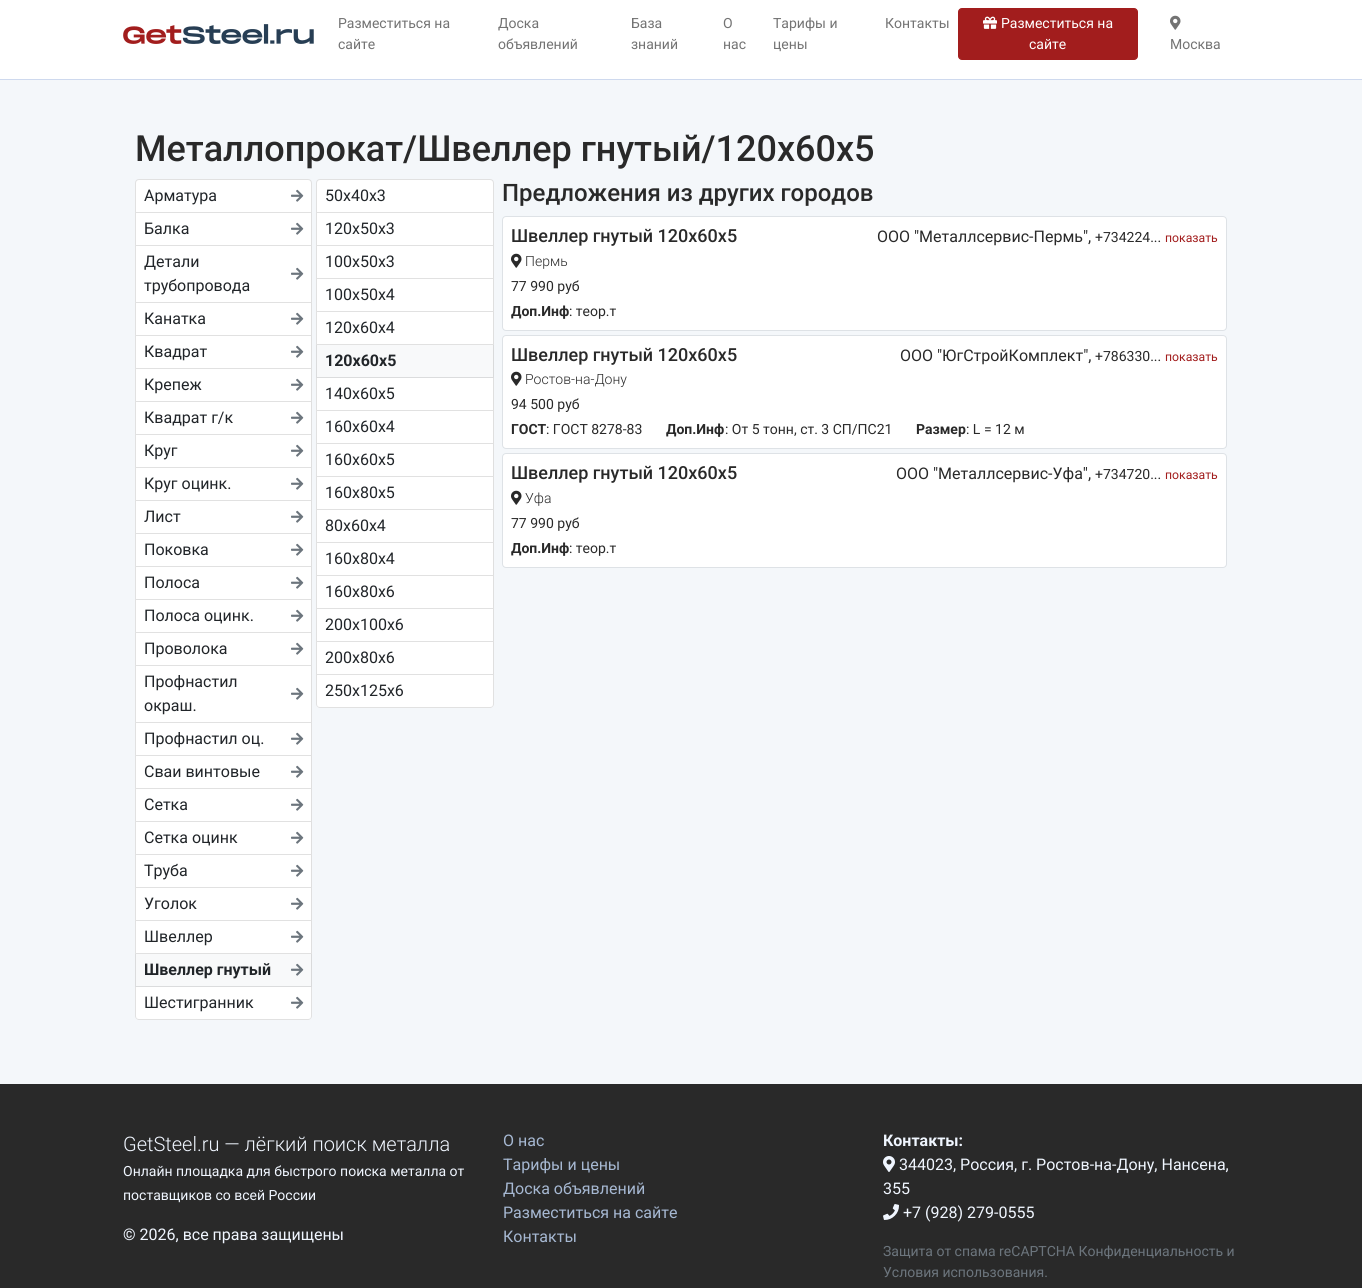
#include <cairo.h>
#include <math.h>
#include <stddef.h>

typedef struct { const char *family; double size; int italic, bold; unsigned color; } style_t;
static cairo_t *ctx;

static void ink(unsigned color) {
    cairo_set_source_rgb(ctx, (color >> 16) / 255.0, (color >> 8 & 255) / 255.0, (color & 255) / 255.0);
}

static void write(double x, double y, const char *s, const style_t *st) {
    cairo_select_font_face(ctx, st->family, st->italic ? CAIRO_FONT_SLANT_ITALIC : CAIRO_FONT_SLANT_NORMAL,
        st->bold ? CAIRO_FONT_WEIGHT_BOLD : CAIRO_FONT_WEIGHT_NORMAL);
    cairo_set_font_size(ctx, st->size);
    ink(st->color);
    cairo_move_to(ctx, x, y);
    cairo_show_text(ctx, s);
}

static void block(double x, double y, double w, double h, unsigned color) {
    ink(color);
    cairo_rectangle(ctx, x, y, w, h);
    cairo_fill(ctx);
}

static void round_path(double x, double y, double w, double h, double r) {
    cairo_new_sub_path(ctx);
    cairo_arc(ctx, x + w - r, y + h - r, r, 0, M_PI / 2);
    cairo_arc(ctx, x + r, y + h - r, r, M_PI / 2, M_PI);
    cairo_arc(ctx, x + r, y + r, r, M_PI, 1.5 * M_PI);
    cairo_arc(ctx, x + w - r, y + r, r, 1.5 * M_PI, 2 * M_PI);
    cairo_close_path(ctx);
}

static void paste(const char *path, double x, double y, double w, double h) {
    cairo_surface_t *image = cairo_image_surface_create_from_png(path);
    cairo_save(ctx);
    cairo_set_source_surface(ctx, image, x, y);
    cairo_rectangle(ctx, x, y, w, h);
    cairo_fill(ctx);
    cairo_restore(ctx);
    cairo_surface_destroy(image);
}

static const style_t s1 = {"Roboto", 14, 0, 0, 0x737373};
static const style_t s2 = {"Roboto", 14, 0, 0, 0xffffff};
static const style_t s3 = {"Roboto Medium", 36, 0, 0, 0x292929};
static const style_t s4 = {"Roboto", 16, 0, 0, 0x212529};
static const style_t s5 = {"Roboto", 16, 0, 1, 0x212529};
static const style_t s6 = {"Roboto Medium", 24, 0, 0, 0x292929};
static const style_t s7 = {"Roboto Medium", 18, 0, 0, 0x292929};
static const style_t s8 = {"Roboto Light", 14, 0, 0, 0x292929};
static const style_t s9 = {"Roboto", 16, 0, 0, 0x292929};
static const style_t s10 = {"Roboto", 14, 0, 0, 0x292929};
static const style_t s11 = {"Roboto", 12.25, 0, 0, 0xa21d1d};
static const style_t s12 = {"Roboto", 14, 0, 1, 0x292929};
static const style_t s13 = {"Roboto Light", 20, 0, 0, 0xf0f6ff};
static const style_t s14 = {"Roboto", 14, 0, 0, 0xf0f6ff};
static const style_t s15 = {"Roboto", 16, 0, 0, 0xf0f6ff};
static const style_t s16 = {"Roboto", 16, 0, 0, 0xa6b8d2};
static const style_t s17 = {"Roboto", 16, 0, 1, 0xf0f6ff};
static const style_t s18 = {"Roboto", 14, 0, 0, 0x6c757d};

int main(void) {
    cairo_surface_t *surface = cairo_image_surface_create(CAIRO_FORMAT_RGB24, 1362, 1288);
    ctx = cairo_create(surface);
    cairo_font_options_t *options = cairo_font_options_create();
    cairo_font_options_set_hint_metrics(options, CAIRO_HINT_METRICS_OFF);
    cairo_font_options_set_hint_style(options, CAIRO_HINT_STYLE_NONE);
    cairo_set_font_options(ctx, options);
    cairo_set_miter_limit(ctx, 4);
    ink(0xf4f7fa);
    cairo_paint(ctx);
    block(0, 0, 1362, 79, 0xffffff);
    block(0, 79, 1362, 1, 0xced9ee);
    paste("pic1.png", 123, 24, 191, 20);
    write(338, 28, "Разместиться на", &s1);
    write(338, 49, "сайте", &s1);
    write(498, 28, "Доска", &s1);
    write(498, 49, "объявлений", &s1);
    write(631, 28, "База", &s1);
    write(631, 49, "знаний", &s1);
    write(723, 28, "О", &s1);
    write(723, 49, "нас", &s1);
    write(773, 28, "Тарифы и", &s1);
    write(773, 49, "цены", &s1);
    write(885, 28, "Контакты", &s1);
    ink(0xa21d1d);
    round_path(958.5, 8.5, 179, 51, 3.5);
    cairo_fill_preserve(ctx);
    cairo_set_line_width(ctx, 1);
    cairo_stroke(ctx);
    paste("pic2.png", 983, 16, 14, 13);
    write(1001, 28, "Разместиться на", &s2);
    write(1029, 49, "сайте", &s2);
    paste("pic3.png", 1170, 15, 11, 15);
    write(1170, 49, "Москва", &s1);
    write(135, 161, "Металлопрокат/Швеллер гнутый/120x60x5", &s3);
    ink(0xffffff);
    cairo_new_path(ctx);
    cairo_move_to(ctx, 139, 179);
    cairo_line_to(ctx, 308, 179);
    cairo_curve_to(ctx, 310, 179, 312, 181, 312, 183);
    cairo_line_to(ctx, 312, 213);
    cairo_line_to(ctx, 135, 213);
    cairo_line_to(ctx, 135, 183);
    cairo_curve_to(ctx, 135, 181, 137, 179, 139, 179);
    cairo_close_path(ctx);
    cairo_fill(ctx);
    cairo_new_path(ctx);
    cairo_move_to(ctx, 139, 179.5);
    cairo_line_to(ctx, 308, 179.5);
    cairo_curve_to(ctx, 310, 179.5, 311.5, 181, 311.5, 183);
    cairo_line_to(ctx, 311.5, 212.5);
    cairo_line_to(ctx, 135.5, 212.5);
    cairo_line_to(ctx, 135.5, 183);
    cairo_curve_to(ctx, 135.5, 181, 137, 179.5, 139, 179.5);
    cairo_close_path(ctx);
    cairo_set_source_rgba(ctx, 0, 0, 0, 0.12);
    cairo_stroke(ctx);
    write(144, 201, "Арматура", &s4);
    paste("pic4.png", 291, 189, 13, 13);
    block(135, 213, 177, 741, 0xffffff);
    ink(0xdfdfdf);
    cairo_new_path(ctx);
    cairo_move_to(ctx, 312, 213);
    cairo_line_to(ctx, 312, 246);
    cairo_line_to(ctx, 311, 245);
    cairo_line_to(ctx, 311, 213);
    cairo_close_path(ctx);
    cairo_fill(ctx);
    cairo_set_source_rgba(ctx, 0, 0, 0, 0.12);
    cairo_new_path(ctx);
    cairo_move_to(ctx, 312, 246);
    cairo_line_to(ctx, 135, 246);
    cairo_line_to(ctx, 136, 245);
    cairo_line_to(ctx, 311, 245);
    cairo_close_path(ctx);
    cairo_fill(ctx);
    cairo_new_path(ctx);
    cairo_move_to(ctx, 135, 246);
    cairo_line_to(ctx, 135, 213);
    cairo_line_to(ctx, 136, 213);
    cairo_line_to(ctx, 136, 245);
    cairo_close_path(ctx);
    cairo_fill(ctx);
    write(144, 234, "Балка", &s4);
    paste("pic4.png", 291, 222, 13, 13);
    ink(0xdfdfdf);
    cairo_new_path(ctx);
    cairo_move_to(ctx, 312, 246);
    cairo_line_to(ctx, 312, 303);
    cairo_line_to(ctx, 311, 302);
    cairo_line_to(ctx, 311, 246);
    cairo_close_path(ctx);
    cairo_fill(ctx);
    cairo_set_source_rgba(ctx, 0, 0, 0, 0.12);
    cairo_new_path(ctx);
    cairo_move_to(ctx, 312, 303);
    cairo_line_to(ctx, 135, 303);
    cairo_line_to(ctx, 136, 302);
    cairo_line_to(ctx, 311, 302);
    cairo_close_path(ctx);
    cairo_fill(ctx);
    cairo_new_path(ctx);
    cairo_move_to(ctx, 135, 303);
    cairo_line_to(ctx, 135, 246);
    cairo_line_to(ctx, 136, 246);
    cairo_line_to(ctx, 136, 302);
    cairo_close_path(ctx);
    cairo_fill(ctx);
    write(144, 267, "Детали", &s4);
    write(144, 291, "трубопровода", &s4);
    paste("pic4.png", 291, 267, 13, 13);
    ink(0xdfdfdf);
    cairo_new_path(ctx);
    cairo_move_to(ctx, 312, 303);
    cairo_line_to(ctx, 312, 336);
    cairo_line_to(ctx, 311, 335);
    cairo_line_to(ctx, 311, 303);
    cairo_close_path(ctx);
    cairo_fill(ctx);
    cairo_set_source_rgba(ctx, 0, 0, 0, 0.12);
    cairo_new_path(ctx);
    cairo_move_to(ctx, 312, 336);
    cairo_line_to(ctx, 135, 336);
    cairo_line_to(ctx, 136, 335);
    cairo_line_to(ctx, 311, 335);
    cairo_close_path(ctx);
    cairo_fill(ctx);
    cairo_new_path(ctx);
    cairo_move_to(ctx, 135, 336);
    cairo_line_to(ctx, 135, 303);
    cairo_line_to(ctx, 136, 303);
    cairo_line_to(ctx, 136, 335);
    cairo_close_path(ctx);
    cairo_fill(ctx);
    write(144, 324, "Канатка", &s4);
    paste("pic4.png", 291, 312, 13, 13);
    ink(0xdfdfdf);
    cairo_new_path(ctx);
    cairo_move_to(ctx, 312, 336);
    cairo_line_to(ctx, 312, 369);
    cairo_line_to(ctx, 311, 368);
    cairo_line_to(ctx, 311, 336);
    cairo_close_path(ctx);
    cairo_fill(ctx);
    cairo_set_source_rgba(ctx, 0, 0, 0, 0.12);
    cairo_new_path(ctx);
    cairo_move_to(ctx, 312, 369);
    cairo_line_to(ctx, 135, 369);
    cairo_line_to(ctx, 136, 368);
    cairo_line_to(ctx, 311, 368);
    cairo_close_path(ctx);
    cairo_fill(ctx);
    cairo_new_path(ctx);
    cairo_move_to(ctx, 135, 369);
    cairo_line_to(ctx, 135, 336);
    cairo_line_to(ctx, 136, 336);
    cairo_line_to(ctx, 136, 368);
    cairo_close_path(ctx);
    cairo_fill(ctx);
    write(144, 357, "Квадрат", &s4);
    paste("pic4.png", 291, 345, 13, 13);
    ink(0xdfdfdf);
    cairo_new_path(ctx);
    cairo_move_to(ctx, 312, 369);
    cairo_line_to(ctx, 312, 402);
    cairo_line_to(ctx, 311, 401);
    cairo_line_to(ctx, 311, 369);
    cairo_close_path(ctx);
    cairo_fill(ctx);
    cairo_set_source_rgba(ctx, 0, 0, 0, 0.12);
    cairo_new_path(ctx);
    cairo_move_to(ctx, 312, 402);
    cairo_line_to(ctx, 135, 402);
    cairo_line_to(ctx, 136, 401);
    cairo_line_to(ctx, 311, 401);
    cairo_close_path(ctx);
    cairo_fill(ctx);
    cairo_new_path(ctx);
    cairo_move_to(ctx, 135, 402);
    cairo_line_to(ctx, 135, 369);
    cairo_line_to(ctx, 136, 369);
    cairo_line_to(ctx, 136, 401);
    cairo_close_path(ctx);
    cairo_fill(ctx);
    write(144, 390, "Крепеж", &s4);
    paste("pic4.png", 291, 378, 13, 13);
    ink(0xdfdfdf);
    cairo_new_path(ctx);
    cairo_move_to(ctx, 312, 402);
    cairo_line_to(ctx, 312, 435);
    cairo_line_to(ctx, 311, 434);
    cairo_line_to(ctx, 311, 402);
    cairo_close_path(ctx);
    cairo_fill(ctx);
    cairo_set_source_rgba(ctx, 0, 0, 0, 0.12);
    cairo_new_path(ctx);
    cairo_move_to(ctx, 312, 435);
    cairo_line_to(ctx, 135, 435);
    cairo_line_to(ctx, 136, 434);
    cairo_line_to(ctx, 311, 434);
    cairo_close_path(ctx);
    cairo_fill(ctx);
    cairo_new_path(ctx);
    cairo_move_to(ctx, 135, 435);
    cairo_line_to(ctx, 135, 402);
    cairo_line_to(ctx, 136, 402);
    cairo_line_to(ctx, 136, 434);
    cairo_close_path(ctx);
    cairo_fill(ctx);
    write(144, 423, "Квадрат г/к", &s4);
    paste("pic4.png", 291, 411, 13, 13);
    ink(0xdfdfdf);
    cairo_new_path(ctx);
    cairo_move_to(ctx, 312, 435);
    cairo_line_to(ctx, 312, 468);
    cairo_line_to(ctx, 311, 467);
    cairo_line_to(ctx, 311, 435);
    cairo_close_path(ctx);
    cairo_fill(ctx);
    cairo_set_source_rgba(ctx, 0, 0, 0, 0.12);
    cairo_new_path(ctx);
    cairo_move_to(ctx, 312, 468);
    cairo_line_to(ctx, 135, 468);
    cairo_line_to(ctx, 136, 467);
    cairo_line_to(ctx, 311, 467);
    cairo_close_path(ctx);
    cairo_fill(ctx);
    cairo_new_path(ctx);
    cairo_move_to(ctx, 135, 468);
    cairo_line_to(ctx, 135, 435);
    cairo_line_to(ctx, 136, 435);
    cairo_line_to(ctx, 136, 467);
    cairo_close_path(ctx);
    cairo_fill(ctx);
    write(144, 456, "Круг", &s4);
    paste("pic4.png", 291, 444, 13, 13);
    ink(0xdfdfdf);
    cairo_new_path(ctx);
    cairo_move_to(ctx, 312, 468);
    cairo_line_to(ctx, 312, 501);
    cairo_line_to(ctx, 311, 500);
    cairo_line_to(ctx, 311, 468);
    cairo_close_path(ctx);
    cairo_fill(ctx);
    cairo_set_source_rgba(ctx, 0, 0, 0, 0.12);
    cairo_new_path(ctx);
    cairo_move_to(ctx, 312, 501);
    cairo_line_to(ctx, 135, 501);
    cairo_line_to(ctx, 136, 500);
    cairo_line_to(ctx, 311, 500);
    cairo_close_path(ctx);
    cairo_fill(ctx);
    cairo_new_path(ctx);
    cairo_move_to(ctx, 135, 501);
    cairo_line_to(ctx, 135, 468);
    cairo_line_to(ctx, 136, 468);
    cairo_line_to(ctx, 136, 500);
    cairo_close_path(ctx);
    cairo_fill(ctx);
    write(144, 489, "Круг оцинк.", &s4);
    paste("pic4.png", 291, 477, 13, 13);
    ink(0xdfdfdf);
    cairo_new_path(ctx);
    cairo_move_to(ctx, 312, 501);
    cairo_line_to(ctx, 312, 534);
    cairo_line_to(ctx, 311, 533);
    cairo_line_to(ctx, 311, 501);
    cairo_close_path(ctx);
    cairo_fill(ctx);
    cairo_set_source_rgba(ctx, 0, 0, 0, 0.12);
    cairo_new_path(ctx);
    cairo_move_to(ctx, 312, 534);
    cairo_line_to(ctx, 135, 534);
    cairo_line_to(ctx, 136, 533);
    cairo_line_to(ctx, 311, 533);
    cairo_close_path(ctx);
    cairo_fill(ctx);
    cairo_new_path(ctx);
    cairo_move_to(ctx, 135, 534);
    cairo_line_to(ctx, 135, 501);
    cairo_line_to(ctx, 136, 501);
    cairo_line_to(ctx, 136, 533);
    cairo_close_path(ctx);
    cairo_fill(ctx);
    write(144, 522, "Лист", &s4);
    paste("pic4.png", 291, 510, 13, 13);
    ink(0xdfdfdf);
    cairo_new_path(ctx);
    cairo_move_to(ctx, 312, 534);
    cairo_line_to(ctx, 312, 567);
    cairo_line_to(ctx, 311, 566);
    cairo_line_to(ctx, 311, 534);
    cairo_close_path(ctx);
    cairo_fill(ctx);
    cairo_set_source_rgba(ctx, 0, 0, 0, 0.12);
    cairo_new_path(ctx);
    cairo_move_to(ctx, 312, 567);
    cairo_line_to(ctx, 135, 567);
    cairo_line_to(ctx, 136, 566);
    cairo_line_to(ctx, 311, 566);
    cairo_close_path(ctx);
    cairo_fill(ctx);
    cairo_new_path(ctx);
    cairo_move_to(ctx, 135, 567);
    cairo_line_to(ctx, 135, 534);
    cairo_line_to(ctx, 136, 534);
    cairo_line_to(ctx, 136, 566);
    cairo_close_path(ctx);
    cairo_fill(ctx);
    write(144, 555, "Поковка", &s4);
    paste("pic4.png", 291, 543, 13, 13);
    ink(0xdfdfdf);
    cairo_new_path(ctx);
    cairo_move_to(ctx, 312, 567);
    cairo_line_to(ctx, 312, 600);
    cairo_line_to(ctx, 311, 599);
    cairo_line_to(ctx, 311, 567);
    cairo_close_path(ctx);
    cairo_fill(ctx);
    cairo_set_source_rgba(ctx, 0, 0, 0, 0.12);
    cairo_new_path(ctx);
    cairo_move_to(ctx, 312, 600);
    cairo_line_to(ctx, 135, 600);
    cairo_line_to(ctx, 136, 599);
    cairo_line_to(ctx, 311, 599);
    cairo_close_path(ctx);
    cairo_fill(ctx);
    cairo_new_path(ctx);
    cairo_move_to(ctx, 135, 600);
    cairo_line_to(ctx, 135, 567);
    cairo_line_to(ctx, 136, 567);
    cairo_line_to(ctx, 136, 599);
    cairo_close_path(ctx);
    cairo_fill(ctx);
    write(144, 588, "Полоса", &s4);
    paste("pic4.png", 291, 576, 13, 13);
    ink(0xdfdfdf);
    cairo_new_path(ctx);
    cairo_move_to(ctx, 312, 600);
    cairo_line_to(ctx, 312, 633);
    cairo_line_to(ctx, 311, 632);
    cairo_line_to(ctx, 311, 600);
    cairo_close_path(ctx);
    cairo_fill(ctx);
    cairo_set_source_rgba(ctx, 0, 0, 0, 0.12);
    cairo_new_path(ctx);
    cairo_move_to(ctx, 312, 633);
    cairo_line_to(ctx, 135, 633);
    cairo_line_to(ctx, 136, 632);
    cairo_line_to(ctx, 311, 632);
    cairo_close_path(ctx);
    cairo_fill(ctx);
    cairo_new_path(ctx);
    cairo_move_to(ctx, 135, 633);
    cairo_line_to(ctx, 135, 600);
    cairo_line_to(ctx, 136, 600);
    cairo_line_to(ctx, 136, 632);
    cairo_close_path(ctx);
    cairo_fill(ctx);
    write(144, 621, "Полоса оцинк.", &s4);
    paste("pic4.png", 291, 609, 13, 13);
    ink(0xdfdfdf);
    cairo_new_path(ctx);
    cairo_move_to(ctx, 312, 633);
    cairo_line_to(ctx, 312, 666);
    cairo_line_to(ctx, 311, 665);
    cairo_line_to(ctx, 311, 633);
    cairo_close_path(ctx);
    cairo_fill(ctx);
    cairo_set_source_rgba(ctx, 0, 0, 0, 0.12);
    cairo_new_path(ctx);
    cairo_move_to(ctx, 312, 666);
    cairo_line_to(ctx, 135, 666);
    cairo_line_to(ctx, 136, 665);
    cairo_line_to(ctx, 311, 665);
    cairo_close_path(ctx);
    cairo_fill(ctx);
    cairo_new_path(ctx);
    cairo_move_to(ctx, 135, 666);
    cairo_line_to(ctx, 135, 633);
    cairo_line_to(ctx, 136, 633);
    cairo_line_to(ctx, 136, 665);
    cairo_close_path(ctx);
    cairo_fill(ctx);
    write(144, 654, "Проволока", &s4);
    paste("pic4.png", 291, 642, 13, 13);
    ink(0xdfdfdf);
    cairo_new_path(ctx);
    cairo_move_to(ctx, 312, 666);
    cairo_line_to(ctx, 312, 723);
    cairo_line_to(ctx, 311, 722);
    cairo_line_to(ctx, 311, 666);
    cairo_close_path(ctx);
    cairo_fill(ctx);
    cairo_set_source_rgba(ctx, 0, 0, 0, 0.12);
    cairo_new_path(ctx);
    cairo_move_to(ctx, 312, 723);
    cairo_line_to(ctx, 135, 723);
    cairo_line_to(ctx, 136, 722);
    cairo_line_to(ctx, 311, 722);
    cairo_close_path(ctx);
    cairo_fill(ctx);
    cairo_new_path(ctx);
    cairo_move_to(ctx, 135, 723);
    cairo_line_to(ctx, 135, 666);
    cairo_line_to(ctx, 136, 666);
    cairo_line_to(ctx, 136, 722);
    cairo_close_path(ctx);
    cairo_fill(ctx);
    write(144, 687, "Профнастил", &s4);
    write(144, 711, "окраш.", &s4);
    paste("pic4.png", 291, 687, 13, 13);
    ink(0xdfdfdf);
    cairo_new_path(ctx);
    cairo_move_to(ctx, 312, 723);
    cairo_line_to(ctx, 312, 756);
    cairo_line_to(ctx, 311, 755);
    cairo_line_to(ctx, 311, 723);
    cairo_close_path(ctx);
    cairo_fill(ctx);
    cairo_set_source_rgba(ctx, 0, 0, 0, 0.12);
    cairo_new_path(ctx);
    cairo_move_to(ctx, 312, 756);
    cairo_line_to(ctx, 135, 756);
    cairo_line_to(ctx, 136, 755);
    cairo_line_to(ctx, 311, 755);
    cairo_close_path(ctx);
    cairo_fill(ctx);
    cairo_new_path(ctx);
    cairo_move_to(ctx, 135, 756);
    cairo_line_to(ctx, 135, 723);
    cairo_line_to(ctx, 136, 723);
    cairo_line_to(ctx, 136, 755);
    cairo_close_path(ctx);
    cairo_fill(ctx);
    write(144, 744, "Профнастил оц.", &s4);
    paste("pic4.png", 291, 732, 13, 13);
    ink(0xdfdfdf);
    cairo_new_path(ctx);
    cairo_move_to(ctx, 312, 756);
    cairo_line_to(ctx, 312, 789);
    cairo_line_to(ctx, 311, 788);
    cairo_line_to(ctx, 311, 756);
    cairo_close_path(ctx);
    cairo_fill(ctx);
    cairo_set_source_rgba(ctx, 0, 0, 0, 0.12);
    cairo_new_path(ctx);
    cairo_move_to(ctx, 312, 789);
    cairo_line_to(ctx, 135, 789);
    cairo_line_to(ctx, 136, 788);
    cairo_line_to(ctx, 311, 788);
    cairo_close_path(ctx);
    cairo_fill(ctx);
    cairo_new_path(ctx);
    cairo_move_to(ctx, 135, 789);
    cairo_line_to(ctx, 135, 756);
    cairo_line_to(ctx, 136, 756);
    cairo_line_to(ctx, 136, 788);
    cairo_close_path(ctx);
    cairo_fill(ctx);
    write(144, 777, "Сваи винтовые", &s4);
    paste("pic4.png", 291, 765, 13, 13);
    ink(0xdfdfdf);
    cairo_new_path(ctx);
    cairo_move_to(ctx, 312, 789);
    cairo_line_to(ctx, 312, 822);
    cairo_line_to(ctx, 311, 821);
    cairo_line_to(ctx, 311, 789);
    cairo_close_path(ctx);
    cairo_fill(ctx);
    cairo_set_source_rgba(ctx, 0, 0, 0, 0.12);
    cairo_new_path(ctx);
    cairo_move_to(ctx, 312, 822);
    cairo_line_to(ctx, 135, 822);
    cairo_line_to(ctx, 136, 821);
    cairo_line_to(ctx, 311, 821);
    cairo_close_path(ctx);
    cairo_fill(ctx);
    cairo_new_path(ctx);
    cairo_move_to(ctx, 135, 822);
    cairo_line_to(ctx, 135, 789);
    cairo_line_to(ctx, 136, 789);
    cairo_line_to(ctx, 136, 821);
    cairo_close_path(ctx);
    cairo_fill(ctx);
    write(144, 810, "Сетка", &s4);
    paste("pic4.png", 291, 798, 13, 13);
    ink(0xdfdfdf);
    cairo_new_path(ctx);
    cairo_move_to(ctx, 312, 822);
    cairo_line_to(ctx, 312, 855);
    cairo_line_to(ctx, 311, 854);
    cairo_line_to(ctx, 311, 822);
    cairo_close_path(ctx);
    cairo_fill(ctx);
    cairo_set_source_rgba(ctx, 0, 0, 0, 0.12);
    cairo_new_path(ctx);
    cairo_move_to(ctx, 312, 855);
    cairo_line_to(ctx, 135, 855);
    cairo_line_to(ctx, 136, 854);
    cairo_line_to(ctx, 311, 854);
    cairo_close_path(ctx);
    cairo_fill(ctx);
    cairo_new_path(ctx);
    cairo_move_to(ctx, 135, 855);
    cairo_line_to(ctx, 135, 822);
    cairo_line_to(ctx, 136, 822);
    cairo_line_to(ctx, 136, 854);
    cairo_close_path(ctx);
    cairo_fill(ctx);
    write(144, 843, "Сетка оцинк", &s4);
    paste("pic4.png", 291, 831, 13, 13);
    ink(0xdfdfdf);
    cairo_new_path(ctx);
    cairo_move_to(ctx, 312, 855);
    cairo_line_to(ctx, 312, 888);
    cairo_line_to(ctx, 311, 887);
    cairo_line_to(ctx, 311, 855);
    cairo_close_path(ctx);
    cairo_fill(ctx);
    cairo_set_source_rgba(ctx, 0, 0, 0, 0.12);
    cairo_new_path(ctx);
    cairo_move_to(ctx, 312, 888);
    cairo_line_to(ctx, 135, 888);
    cairo_line_to(ctx, 136, 887);
    cairo_line_to(ctx, 311, 887);
    cairo_close_path(ctx);
    cairo_fill(ctx);
    cairo_new_path(ctx);
    cairo_move_to(ctx, 135, 888);
    cairo_line_to(ctx, 135, 855);
    cairo_line_to(ctx, 136, 855);
    cairo_line_to(ctx, 136, 887);
    cairo_close_path(ctx);
    cairo_fill(ctx);
    write(144, 876, "Труба", &s4);
    paste("pic4.png", 291, 864, 13, 13);
    ink(0xdfdfdf);
    cairo_new_path(ctx);
    cairo_move_to(ctx, 312, 888);
    cairo_line_to(ctx, 312, 921);
    cairo_line_to(ctx, 311, 920);
    cairo_line_to(ctx, 311, 888);
    cairo_close_path(ctx);
    cairo_fill(ctx);
    cairo_set_source_rgba(ctx, 0, 0, 0, 0.12);
    cairo_new_path(ctx);
    cairo_move_to(ctx, 312, 921);
    cairo_line_to(ctx, 135, 921);
    cairo_line_to(ctx, 136, 920);
    cairo_line_to(ctx, 311, 920);
    cairo_close_path(ctx);
    cairo_fill(ctx);
    cairo_new_path(ctx);
    cairo_move_to(ctx, 135, 921);
    cairo_line_to(ctx, 135, 888);
    cairo_line_to(ctx, 136, 888);
    cairo_line_to(ctx, 136, 920);
    cairo_close_path(ctx);
    cairo_fill(ctx);
    write(144, 909, "Уголок", &s4);
    paste("pic4.png", 291, 897, 13, 13);
    ink(0xdfdfdf);
    cairo_new_path(ctx);
    cairo_move_to(ctx, 312, 921);
    cairo_line_to(ctx, 312, 954);
    cairo_line_to(ctx, 311, 953);
    cairo_line_to(ctx, 311, 921);
    cairo_close_path(ctx);
    cairo_fill(ctx);
    cairo_set_source_rgba(ctx, 0, 0, 0, 0.12);
    cairo_new_path(ctx);
    cairo_move_to(ctx, 312, 954);
    cairo_line_to(ctx, 135, 954);
    cairo_line_to(ctx, 136, 953);
    cairo_line_to(ctx, 311, 953);
    cairo_close_path(ctx);
    cairo_fill(ctx);
    cairo_new_path(ctx);
    cairo_move_to(ctx, 135, 954);
    cairo_line_to(ctx, 135, 921);
    cairo_line_to(ctx, 136, 921);
    cairo_line_to(ctx, 136, 953);
    cairo_close_path(ctx);
    cairo_fill(ctx);
    write(144, 942, "Швеллер", &s4);
    paste("pic4.png", 291, 930, 13, 13);
    block(135, 954, 177, 33, 0xf8f9fa);
    ink(0xd9dadb);
    cairo_new_path(ctx);
    cairo_move_to(ctx, 312, 954);
    cairo_line_to(ctx, 312, 987);
    cairo_line_to(ctx, 311, 986);
    cairo_line_to(ctx, 311, 954);
    cairo_close_path(ctx);
    cairo_fill(ctx);
    cairo_set_source_rgba(ctx, 0, 0, 0, 0.12);
    cairo_new_path(ctx);
    cairo_move_to(ctx, 312, 987);
    cairo_line_to(ctx, 135, 987);
    cairo_line_to(ctx, 136, 986);
    cairo_line_to(ctx, 311, 986);
    cairo_close_path(ctx);
    cairo_fill(ctx);
    cairo_new_path(ctx);
    cairo_move_to(ctx, 135, 987);
    cairo_line_to(ctx, 135, 954);
    cairo_line_to(ctx, 136, 954);
    cairo_line_to(ctx, 136, 986);
    cairo_close_path(ctx);
    cairo_fill(ctx);
    write(144, 975, "Швеллер гнутый", &s5);
    paste("pic5.png", 291, 963, 13, 13);
    ink(0xffffff);
    cairo_new_path(ctx);
    cairo_move_to(ctx, 135, 987);
    cairo_line_to(ctx, 312, 987);
    cairo_line_to(ctx, 312, 1016);
    cairo_curve_to(ctx, 312, 1018, 310, 1020, 308, 1020);
    cairo_line_to(ctx, 139, 1020);
    cairo_curve_to(ctx, 137, 1020, 135, 1018, 135, 1016);
    cairo_close_path(ctx);
    cairo_fill(ctx);
    cairo_set_source_rgba(ctx, 0, 0, 0, 0.12);
    cairo_set_fill_rule(ctx, CAIRO_FILL_RULE_EVEN_ODD);
    cairo_new_path(ctx);
    cairo_move_to(ctx, 135, 987);
    cairo_line_to(ctx, 312, 987);
    cairo_line_to(ctx, 312, 1016);
    cairo_curve_to(ctx, 312, 1018, 310, 1020, 308, 1020);
    cairo_line_to(ctx, 139, 1020);
    cairo_curve_to(ctx, 137, 1020, 135, 1018, 135, 1016);
    cairo_close_path(ctx);
    cairo_move_to(ctx, 136, 987);
    cairo_line_to(ctx, 311, 987);
    cairo_line_to(ctx, 311, 1016);
    cairo_curve_to(ctx, 311, 1018, 310, 1019, 308, 1019);
    cairo_line_to(ctx, 139, 1019);
    cairo_curve_to(ctx, 137, 1019, 136, 1018, 136, 1016);
    cairo_close_path(ctx);
    cairo_fill(ctx);
    write(144, 1008, "Шестигранник", &s4);
    paste("pic4.png", 291, 996, 13, 13);
    ink(0xffffff);
    cairo_new_path(ctx);
    cairo_move_to(ctx, 320, 179);
    cairo_line_to(ctx, 490, 179);
    cairo_curve_to(ctx, 492, 179, 494, 181, 494, 183);
    cairo_line_to(ctx, 494, 213);
    cairo_line_to(ctx, 316, 213);
    cairo_line_to(ctx, 316, 183);
    cairo_curve_to(ctx, 316, 181, 318, 179, 320, 179);
    cairo_close_path(ctx);
    cairo_fill(ctx);
    cairo_new_path(ctx);
    cairo_move_to(ctx, 320, 179.5);
    cairo_line_to(ctx, 490, 179.5);
    cairo_curve_to(ctx, 492, 179.5, 493.5, 181, 493.5, 183);
    cairo_line_to(ctx, 493.5, 212.5);
    cairo_line_to(ctx, 316.5, 212.5);
    cairo_line_to(ctx, 316.5, 183);
    cairo_curve_to(ctx, 316.5, 181, 318, 179.5, 320, 179.5);
    cairo_close_path(ctx);
    cairo_set_source_rgba(ctx, 0, 0, 0, 0.12);
    cairo_stroke(ctx);
    write(325, 201, "50x40x3", &s4);
    block(316, 213, 178, 132, 0xffffff);
    ink(0xdfdfdf);
    cairo_set_fill_rule(ctx, CAIRO_FILL_RULE_WINDING);
    cairo_new_path(ctx);
    cairo_move_to(ctx, 494, 213);
    cairo_line_to(ctx, 494, 246);
    cairo_line_to(ctx, 493, 245);
    cairo_line_to(ctx, 493, 213);
    cairo_close_path(ctx);
    cairo_fill(ctx);
    cairo_set_source_rgba(ctx, 0, 0, 0, 0.12);
    cairo_new_path(ctx);
    cairo_move_to(ctx, 494, 246);
    cairo_line_to(ctx, 316, 246);
    cairo_line_to(ctx, 317, 245);
    cairo_line_to(ctx, 493, 245);
    cairo_close_path(ctx);
    cairo_fill(ctx);
    cairo_new_path(ctx);
    cairo_move_to(ctx, 316, 246);
    cairo_line_to(ctx, 316, 213);
    cairo_line_to(ctx, 317, 213);
    cairo_line_to(ctx, 317, 245);
    cairo_close_path(ctx);
    cairo_fill(ctx);
    write(325, 234, "120x50x3", &s4);
    ink(0xdfdfdf);
    cairo_new_path(ctx);
    cairo_move_to(ctx, 494, 246);
    cairo_line_to(ctx, 494, 279);
    cairo_line_to(ctx, 493, 278);
    cairo_line_to(ctx, 493, 246);
    cairo_close_path(ctx);
    cairo_fill(ctx);
    cairo_set_source_rgba(ctx, 0, 0, 0, 0.12);
    cairo_new_path(ctx);
    cairo_move_to(ctx, 494, 279);
    cairo_line_to(ctx, 316, 279);
    cairo_line_to(ctx, 317, 278);
    cairo_line_to(ctx, 493, 278);
    cairo_close_path(ctx);
    cairo_fill(ctx);
    cairo_new_path(ctx);
    cairo_move_to(ctx, 316, 279);
    cairo_line_to(ctx, 316, 246);
    cairo_line_to(ctx, 317, 246);
    cairo_line_to(ctx, 317, 278);
    cairo_close_path(ctx);
    cairo_fill(ctx);
    write(325, 267, "100x50x3", &s4);
    ink(0xdfdfdf);
    cairo_new_path(ctx);
    cairo_move_to(ctx, 494, 279);
    cairo_line_to(ctx, 494, 312);
    cairo_line_to(ctx, 493, 311);
    cairo_line_to(ctx, 493, 279);
    cairo_close_path(ctx);
    cairo_fill(ctx);
    cairo_set_source_rgba(ctx, 0, 0, 0, 0.12);
    cairo_new_path(ctx);
    cairo_move_to(ctx, 494, 312);
    cairo_line_to(ctx, 316, 312);
    cairo_line_to(ctx, 317, 311);
    cairo_line_to(ctx, 493, 311);
    cairo_close_path(ctx);
    cairo_fill(ctx);
    cairo_new_path(ctx);
    cairo_move_to(ctx, 316, 312);
    cairo_line_to(ctx, 316, 279);
    cairo_line_to(ctx, 317, 279);
    cairo_line_to(ctx, 317, 311);
    cairo_close_path(ctx);
    cairo_fill(ctx);
    write(325, 300, "100x50x4", &s4);
    ink(0xdfdfdf);
    cairo_new_path(ctx);
    cairo_move_to(ctx, 494, 312);
    cairo_line_to(ctx, 494, 345);
    cairo_line_to(ctx, 493, 344);
    cairo_line_to(ctx, 493, 312);
    cairo_close_path(ctx);
    cairo_fill(ctx);
    cairo_set_source_rgba(ctx, 0, 0, 0, 0.12);
    cairo_new_path(ctx);
    cairo_move_to(ctx, 494, 345);
    cairo_line_to(ctx, 316, 345);
    cairo_line_to(ctx, 317, 344);
    cairo_line_to(ctx, 493, 344);
    cairo_close_path(ctx);
    cairo_fill(ctx);
    cairo_new_path(ctx);
    cairo_move_to(ctx, 316, 345);
    cairo_line_to(ctx, 316, 312);
    cairo_line_to(ctx, 317, 312);
    cairo_line_to(ctx, 317, 344);
    cairo_close_path(ctx);
    cairo_fill(ctx);
    write(325, 333, "120x60x4", &s4);
    block(316, 345, 178, 33, 0xf8f9fa);
    ink(0xd9dadb);
    cairo_new_path(ctx);
    cairo_move_to(ctx, 494, 345);
    cairo_line_to(ctx, 494, 378);
    cairo_line_to(ctx, 493, 377);
    cairo_line_to(ctx, 493, 345);
    cairo_close_path(ctx);
    cairo_fill(ctx);
    cairo_set_source_rgba(ctx, 0, 0, 0, 0.12);
    cairo_new_path(ctx);
    cairo_move_to(ctx, 494, 378);
    cairo_line_to(ctx, 316, 378);
    cairo_line_to(ctx, 317, 377);
    cairo_line_to(ctx, 493, 377);
    cairo_close_path(ctx);
    cairo_fill(ctx);
    cairo_new_path(ctx);
    cairo_move_to(ctx, 316, 378);
    cairo_line_to(ctx, 316, 345);
    cairo_line_to(ctx, 317, 345);
    cairo_line_to(ctx, 317, 377);
    cairo_close_path(ctx);
    cairo_fill(ctx);
    write(325, 366, "120x60x5", &s5);
    block(316, 378, 178, 297, 0xffffff);
    ink(0xdfdfdf);
    cairo_new_path(ctx);
    cairo_move_to(ctx, 494, 378);
    cairo_line_to(ctx, 494, 411);
    cairo_line_to(ctx, 493, 410);
    cairo_line_to(ctx, 493, 378);
    cairo_close_path(ctx);
    cairo_fill(ctx);
    cairo_set_source_rgba(ctx, 0, 0, 0, 0.12);
    cairo_new_path(ctx);
    cairo_move_to(ctx, 494, 411);
    cairo_line_to(ctx, 316, 411);
    cairo_line_to(ctx, 317, 410);
    cairo_line_to(ctx, 493, 410);
    cairo_close_path(ctx);
    cairo_fill(ctx);
    cairo_new_path(ctx);
    cairo_move_to(ctx, 316, 411);
    cairo_line_to(ctx, 316, 378);
    cairo_line_to(ctx, 317, 378);
    cairo_line_to(ctx, 317, 410);
    cairo_close_path(ctx);
    cairo_fill(ctx);
    write(325, 399, "140x60x5", &s4);
    ink(0xdfdfdf);
    cairo_new_path(ctx);
    cairo_move_to(ctx, 494, 411);
    cairo_line_to(ctx, 494, 444);
    cairo_line_to(ctx, 493, 443);
    cairo_line_to(ctx, 493, 411);
    cairo_close_path(ctx);
    cairo_fill(ctx);
    cairo_set_source_rgba(ctx, 0, 0, 0, 0.12);
    cairo_new_path(ctx);
    cairo_move_to(ctx, 494, 444);
    cairo_line_to(ctx, 316, 444);
    cairo_line_to(ctx, 317, 443);
    cairo_line_to(ctx, 493, 443);
    cairo_close_path(ctx);
    cairo_fill(ctx);
    cairo_new_path(ctx);
    cairo_move_to(ctx, 316, 444);
    cairo_line_to(ctx, 316, 411);
    cairo_line_to(ctx, 317, 411);
    cairo_line_to(ctx, 317, 443);
    cairo_close_path(ctx);
    cairo_fill(ctx);
    write(325, 432, "160x60x4", &s4);
    ink(0xdfdfdf);
    cairo_new_path(ctx);
    cairo_move_to(ctx, 494, 444);
    cairo_line_to(ctx, 494, 477);
    cairo_line_to(ctx, 493, 476);
    cairo_line_to(ctx, 493, 444);
    cairo_close_path(ctx);
    cairo_fill(ctx);
    cairo_set_source_rgba(ctx, 0, 0, 0, 0.12);
    cairo_new_path(ctx);
    cairo_move_to(ctx, 494, 477);
    cairo_line_to(ctx, 316, 477);
    cairo_line_to(ctx, 317, 476);
    cairo_line_to(ctx, 493, 476);
    cairo_close_path(ctx);
    cairo_fill(ctx);
    cairo_new_path(ctx);
    cairo_move_to(ctx, 316, 477);
    cairo_line_to(ctx, 316, 444);
    cairo_line_to(ctx, 317, 444);
    cairo_line_to(ctx, 317, 476);
    cairo_close_path(ctx);
    cairo_fill(ctx);
    write(325, 465, "160x60x5", &s4);
    ink(0xdfdfdf);
    cairo_new_path(ctx);
    cairo_move_to(ctx, 494, 477);
    cairo_line_to(ctx, 494, 510);
    cairo_line_to(ctx, 493, 509);
    cairo_line_to(ctx, 493, 477);
    cairo_close_path(ctx);
    cairo_fill(ctx);
    cairo_set_source_rgba(ctx, 0, 0, 0, 0.12);
    cairo_new_path(ctx);
    cairo_move_to(ctx, 494, 510);
    cairo_line_to(ctx, 316, 510);
    cairo_line_to(ctx, 317, 509);
    cairo_line_to(ctx, 493, 509);
    cairo_close_path(ctx);
    cairo_fill(ctx);
    cairo_new_path(ctx);
    cairo_move_to(ctx, 316, 510);
    cairo_line_to(ctx, 316, 477);
    cairo_line_to(ctx, 317, 477);
    cairo_line_to(ctx, 317, 509);
    cairo_close_path(ctx);
    cairo_fill(ctx);
    write(325, 498, "160x80x5", &s4);
    ink(0xdfdfdf);
    cairo_new_path(ctx);
    cairo_move_to(ctx, 494, 510);
    cairo_line_to(ctx, 494, 543);
    cairo_line_to(ctx, 493, 542);
    cairo_line_to(ctx, 493, 510);
    cairo_close_path(ctx);
    cairo_fill(ctx);
    cairo_set_source_rgba(ctx, 0, 0, 0, 0.12);
    cairo_new_path(ctx);
    cairo_move_to(ctx, 494, 543);
    cairo_line_to(ctx, 316, 543);
    cairo_line_to(ctx, 317, 542);
    cairo_line_to(ctx, 493, 542);
    cairo_close_path(ctx);
    cairo_fill(ctx);
    cairo_new_path(ctx);
    cairo_move_to(ctx, 316, 543);
    cairo_line_to(ctx, 316, 510);
    cairo_line_to(ctx, 317, 510);
    cairo_line_to(ctx, 317, 542);
    cairo_close_path(ctx);
    cairo_fill(ctx);
    write(325, 531, "80x60x4", &s4);
    ink(0xdfdfdf);
    cairo_new_path(ctx);
    cairo_move_to(ctx, 494, 543);
    cairo_line_to(ctx, 494, 576);
    cairo_line_to(ctx, 493, 575);
    cairo_line_to(ctx, 493, 543);
    cairo_close_path(ctx);
    cairo_fill(ctx);
    cairo_set_source_rgba(ctx, 0, 0, 0, 0.12);
    cairo_new_path(ctx);
    cairo_move_to(ctx, 494, 576);
    cairo_line_to(ctx, 316, 576);
    cairo_line_to(ctx, 317, 575);
    cairo_line_to(ctx, 493, 575);
    cairo_close_path(ctx);
    cairo_fill(ctx);
    cairo_new_path(ctx);
    cairo_move_to(ctx, 316, 576);
    cairo_line_to(ctx, 316, 543);
    cairo_line_to(ctx, 317, 543);
    cairo_line_to(ctx, 317, 575);
    cairo_close_path(ctx);
    cairo_fill(ctx);
    write(325, 564, "160x80x4", &s4);
    ink(0xdfdfdf);
    cairo_new_path(ctx);
    cairo_move_to(ctx, 494, 576);
    cairo_line_to(ctx, 494, 609);
    cairo_line_to(ctx, 493, 608);
    cairo_line_to(ctx, 493, 576);
    cairo_close_path(ctx);
    cairo_fill(ctx);
    cairo_set_source_rgba(ctx, 0, 0, 0, 0.12);
    cairo_new_path(ctx);
    cairo_move_to(ctx, 494, 609);
    cairo_line_to(ctx, 316, 609);
    cairo_line_to(ctx, 317, 608);
    cairo_line_to(ctx, 493, 608);
    cairo_close_path(ctx);
    cairo_fill(ctx);
    cairo_new_path(ctx);
    cairo_move_to(ctx, 316, 609);
    cairo_line_to(ctx, 316, 576);
    cairo_line_to(ctx, 317, 576);
    cairo_line_to(ctx, 317, 608);
    cairo_close_path(ctx);
    cairo_fill(ctx);
    write(325, 597, "160x80x6", &s4);
    ink(0xdfdfdf);
    cairo_new_path(ctx);
    cairo_move_to(ctx, 494, 609);
    cairo_line_to(ctx, 494, 642);
    cairo_line_to(ctx, 493, 641);
    cairo_line_to(ctx, 493, 609);
    cairo_close_path(ctx);
    cairo_fill(ctx);
    cairo_set_source_rgba(ctx, 0, 0, 0, 0.12);
    cairo_new_path(ctx);
    cairo_move_to(ctx, 494, 642);
    cairo_line_to(ctx, 316, 642);
    cairo_line_to(ctx, 317, 641);
    cairo_line_to(ctx, 493, 641);
    cairo_close_path(ctx);
    cairo_fill(ctx);
    cairo_new_path(ctx);
    cairo_move_to(ctx, 316, 642);
    cairo_line_to(ctx, 316, 609);
    cairo_line_to(ctx, 317, 609);
    cairo_line_to(ctx, 317, 641);
    cairo_close_path(ctx);
    cairo_fill(ctx);
    write(325, 630, "200x100x6", &s4);
    ink(0xdfdfdf);
    cairo_new_path(ctx);
    cairo_move_to(ctx, 494, 642);
    cairo_line_to(ctx, 494, 675);
    cairo_line_to(ctx, 493, 674);
    cairo_line_to(ctx, 493, 642);
    cairo_close_path(ctx);
    cairo_fill(ctx);
    cairo_set_source_rgba(ctx, 0, 0, 0, 0.12);
    cairo_new_path(ctx);
    cairo_move_to(ctx, 494, 675);
    cairo_line_to(ctx, 316, 675);
    cairo_line_to(ctx, 317, 674);
    cairo_line_to(ctx, 493, 674);
    cairo_close_path(ctx);
    cairo_fill(ctx);
    cairo_new_path(ctx);
    cairo_move_to(ctx, 316, 675);
    cairo_line_to(ctx, 316, 642);
    cairo_line_to(ctx, 317, 642);
    cairo_line_to(ctx, 317, 674);
    cairo_close_path(ctx);
    cairo_fill(ctx);
    write(325, 663, "200x80x6", &s4);
    ink(0xffffff);
    cairo_new_path(ctx);
    cairo_move_to(ctx, 316, 675);
    cairo_line_to(ctx, 494, 675);
    cairo_line_to(ctx, 494, 704);
    cairo_curve_to(ctx, 494, 706, 492, 708, 490, 708);
    cairo_line_to(ctx, 320, 708);
    cairo_curve_to(ctx, 318, 708, 316, 706, 316, 704);
    cairo_close_path(ctx);
    cairo_fill(ctx);
    cairo_set_source_rgba(ctx, 0, 0, 0, 0.12);
    cairo_set_fill_rule(ctx, CAIRO_FILL_RULE_EVEN_ODD);
    cairo_new_path(ctx);
    cairo_move_to(ctx, 316, 675);
    cairo_line_to(ctx, 494, 675);
    cairo_line_to(ctx, 494, 704);
    cairo_curve_to(ctx, 494, 706, 492, 708, 490, 708);
    cairo_line_to(ctx, 320, 708);
    cairo_curve_to(ctx, 318, 708, 316, 706, 316, 704);
    cairo_close_path(ctx);
    cairo_move_to(ctx, 317, 675);
    cairo_line_to(ctx, 493, 675);
    cairo_line_to(ctx, 493, 704);
    cairo_curve_to(ctx, 493, 706, 492, 707, 490, 707);
    cairo_line_to(ctx, 320, 707);
    cairo_curve_to(ctx, 318, 707, 317, 706, 317, 704);
    cairo_close_path(ctx);
    cairo_fill(ctx);
    write(325, 696, "250x125x6", &s4);
    write(502, 201, "Предложения из других городов", &s6);
    ink(0xffffff);
    round_path(502.5, 216.5, 724, 114, 3.5);
    cairo_fill_preserve(ctx);
    ink(0xdee2e6);
    cairo_stroke(ctx);
    write(511, 242, "Швеллер гнутый 120x60x5", &s7);
    paste("pic6.png", 511, 253, 11, 15);
    write(525, 266, "Пермь", &s8);
    write(877, 242, "OOO \"Металлсервис-Пермь\",", &s9);
    write(1095, 242, "+734224...", &s10);
    write(1165, 242, "показать", &s11);
    write(511, 291, "77 990 руб", &s10);
    write(511, 316, "Доп.Инф", &s12);
    write(569, 316, ": теор.т", &s10);
    ink(0xffffff);
    round_path(502.5, 335.5, 724, 113, 3.5);
    cairo_fill_preserve(ctx);
    ink(0xdee2e6);
    cairo_stroke(ctx);
    write(511, 361, "Швеллер гнутый 120x60x5", &s7);
    paste("pic6.png", 511, 371, 11, 15);
    write(525, 384, "Ростов-на-Дону", &s8);
    write(900, 361, "ООО \"ЮгСтройКомплект\",", &s9);
    write(1095, 361, "+786330...", &s10);
    write(1165, 361, "показать", &s11);
    write(511, 409, "94 500 руб", &s10);
    write(511, 434, "ГОСТ", &s12);
    write(546, 434, ": ГОСТ 8278-83", &s10);
    write(666, 434, "Доп.Инф", &s12);
    write(725, 434, ": От 5 тонн, ст. 3 СП/ПС21", &s10);
    write(916, 434, "Размер", &s12);
    write(966, 434, ": L = 12 м", &s10);
    ink(0xffffff);
    round_path(502.5, 453.5, 724, 114, 3.5);
    cairo_fill_preserve(ctx);
    ink(0xdee2e6);
    cairo_stroke(ctx);
    write(511, 479, "Швеллер гнутый 120x60x5", &s7);
    paste("pic6.png", 511, 490, 11, 15);
    write(525, 503, "Уфа", &s8);
    write(896, 479, "OOO \"Металлсервис-Уфа\",", &s9);
    write(1095, 479, "+734720...", &s10);
    write(1165, 479, "показать", &s11);
    write(511, 528, "77 990 руб", &s10);
    write(511, 553, "Доп.Инф", &s12);
    write(569, 553, ": теор.т", &s10);
    block(0, 1084, 1362, 204, 0x292929);
    write(123, 1151, "GetSteel.ru — лёгкий поиск металла", &s13);
    write(123, 1176, "Онлайн площадка для быстрого поиска металла от", &s14);
    write(123, 1200, "поставщиков со всей России", &s14);
    write(123, 1240, "© 2026, все права защищены", &s15);
    write(503, 1146, "О нас", &s16);
    write(503, 1170, "Тарифы и цены", &s16);
    write(503, 1194, "Доска объявлений", &s16);
    write(503, 1218, "Разместиться на сайте", &s16);
    write(503, 1242, "Контакты", &s16);
    write(883, 1146, "Контакты:", &s17);
    paste("pic7.png", 883, 1156, 12, 16);
    write(899, 1170, "344023, Россия, г. Ростов-на-Дону, Нансена,", &s15);
    write(883, 1194, "355", &s15);
    paste("pic8.png", 883, 1204, 16, 16);
    write(903, 1218, "+7 (928) 279-0555", &s15);
    write(883, 1256, "Защита от спама reCAPTCHA Конфиденциальность и", &s18);
    write(883, 1277, "Условия использования.", &s18);
    cairo_surface_write_to_png(surface, "screenshot.png");
    cairo_font_options_destroy(options);
    cairo_destroy(ctx);
    cairo_surface_destroy(surface);
    return 0;
}
